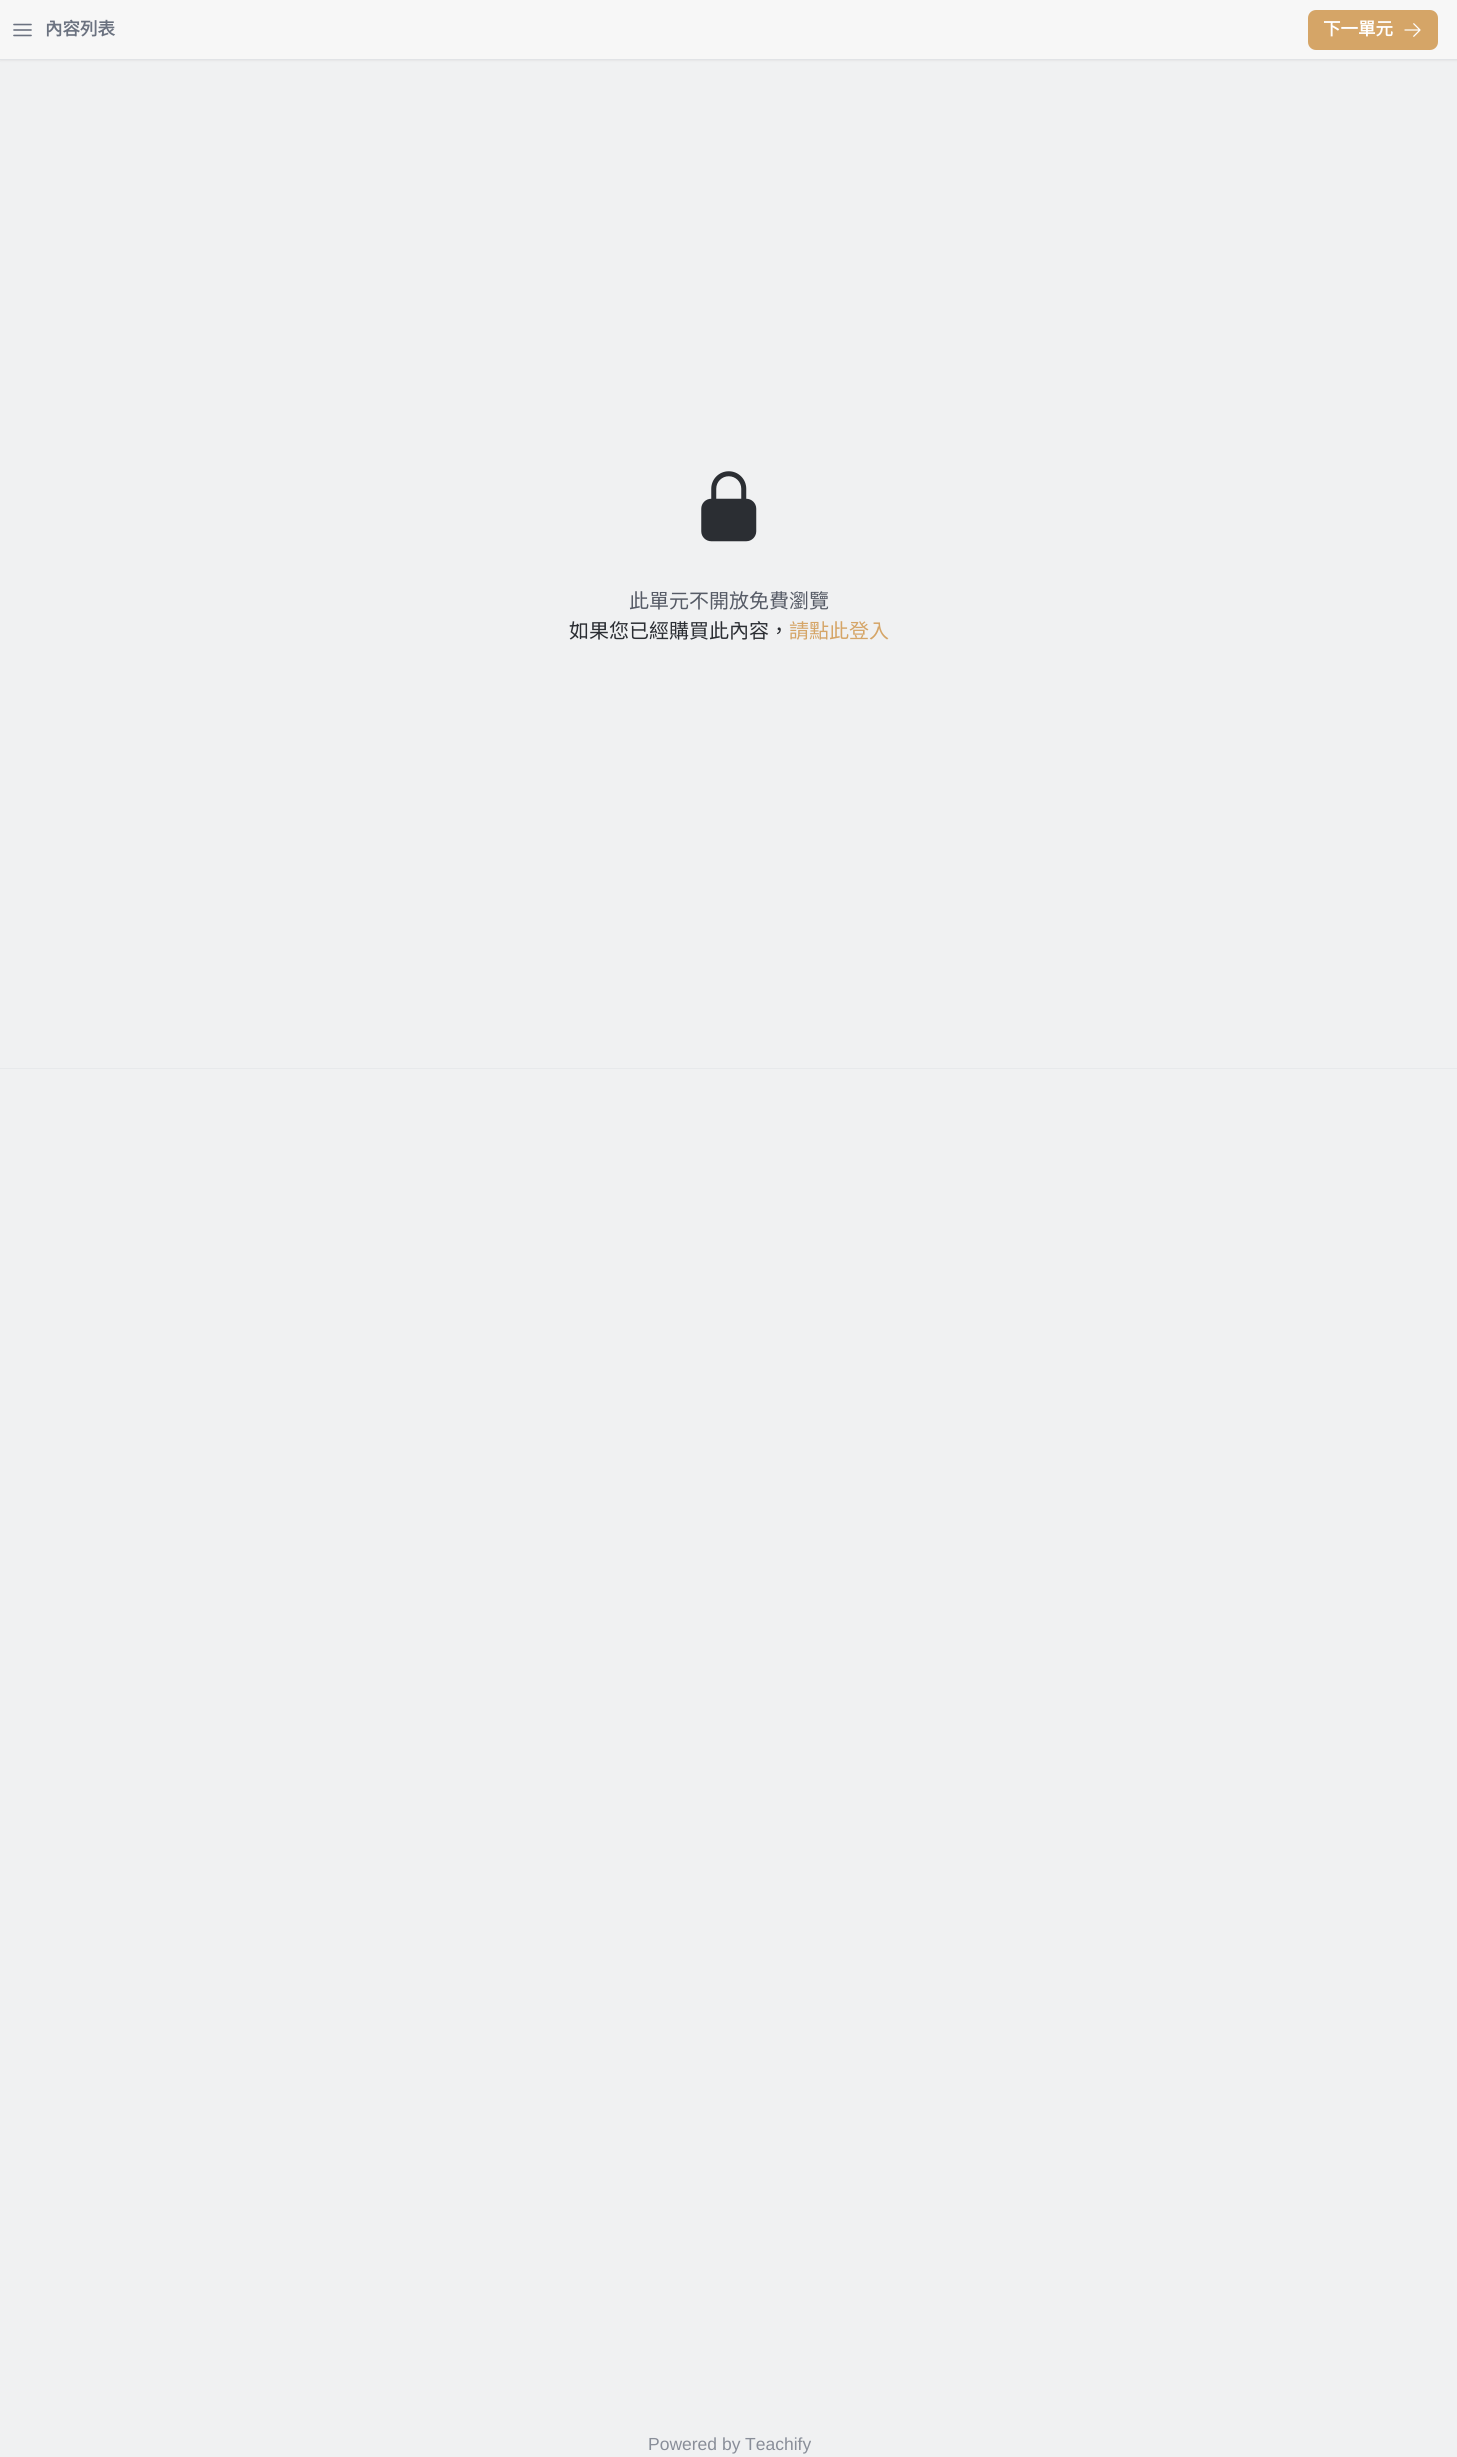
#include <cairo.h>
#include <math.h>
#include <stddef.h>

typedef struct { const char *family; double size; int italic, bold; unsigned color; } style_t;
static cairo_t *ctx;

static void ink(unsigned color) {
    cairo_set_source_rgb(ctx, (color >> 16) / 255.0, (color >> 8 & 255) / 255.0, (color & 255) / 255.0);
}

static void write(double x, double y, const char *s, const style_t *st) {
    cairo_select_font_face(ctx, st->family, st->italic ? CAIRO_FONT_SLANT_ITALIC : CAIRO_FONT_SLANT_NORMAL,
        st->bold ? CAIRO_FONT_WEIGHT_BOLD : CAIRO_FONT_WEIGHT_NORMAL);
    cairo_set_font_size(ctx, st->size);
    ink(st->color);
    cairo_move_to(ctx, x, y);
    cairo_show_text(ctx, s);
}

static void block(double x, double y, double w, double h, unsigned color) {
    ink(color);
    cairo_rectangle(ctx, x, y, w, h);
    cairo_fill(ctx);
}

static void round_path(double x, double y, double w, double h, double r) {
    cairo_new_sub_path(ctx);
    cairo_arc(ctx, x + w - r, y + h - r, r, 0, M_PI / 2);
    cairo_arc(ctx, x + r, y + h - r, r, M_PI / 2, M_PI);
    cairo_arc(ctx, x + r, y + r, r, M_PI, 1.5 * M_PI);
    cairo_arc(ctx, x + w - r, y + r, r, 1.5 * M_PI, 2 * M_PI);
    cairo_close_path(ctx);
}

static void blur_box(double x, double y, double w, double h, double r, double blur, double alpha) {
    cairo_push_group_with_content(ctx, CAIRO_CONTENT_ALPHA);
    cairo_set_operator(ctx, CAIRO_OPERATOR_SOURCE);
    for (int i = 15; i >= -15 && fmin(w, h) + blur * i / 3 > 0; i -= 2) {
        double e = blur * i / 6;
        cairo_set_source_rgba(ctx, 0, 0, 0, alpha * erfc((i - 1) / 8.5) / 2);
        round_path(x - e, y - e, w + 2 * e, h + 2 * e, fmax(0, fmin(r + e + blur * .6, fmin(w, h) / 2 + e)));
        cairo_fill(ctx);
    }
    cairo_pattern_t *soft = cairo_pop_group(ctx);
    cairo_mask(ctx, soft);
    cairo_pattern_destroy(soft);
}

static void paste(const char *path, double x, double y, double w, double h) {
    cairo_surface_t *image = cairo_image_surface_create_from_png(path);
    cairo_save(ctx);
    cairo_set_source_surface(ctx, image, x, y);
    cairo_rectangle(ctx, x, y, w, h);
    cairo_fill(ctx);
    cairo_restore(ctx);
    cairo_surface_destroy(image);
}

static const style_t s1 = {"Noto Sans CJK TC", 17.5, 0, 1, 0x6b7280};
static const style_t s2 = {"Noto Sans CJK TC", 17.5, 0, 1, 0xffffff};
static const style_t s3 = {"Noto Sans CJK TC", 20, 0, 0, 0x565b66};
static const style_t s4 = {"Noto Sans CJK TC", 20, 0, 0, 0x2b2e33};
static const style_t s5 = {"Noto Sans CJK TC", 20, 0, 0, 0xd5a567};
static const style_t s6 = {"Liberation Sans", 17.5, 0, 0, 0x898e99};

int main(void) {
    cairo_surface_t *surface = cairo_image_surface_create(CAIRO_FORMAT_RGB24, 1457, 2457);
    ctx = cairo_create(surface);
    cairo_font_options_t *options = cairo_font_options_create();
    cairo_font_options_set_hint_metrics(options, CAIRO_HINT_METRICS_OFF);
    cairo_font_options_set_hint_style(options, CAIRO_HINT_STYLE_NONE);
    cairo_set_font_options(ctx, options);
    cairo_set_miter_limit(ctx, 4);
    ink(0xf0f1f2);
    cairo_paint(ctx);
    ink(0x000000);
    blur_box(0, 1, 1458, 60, 0, 1, 0.05);
    block(0, 0, 1457, 59, 0xf7f7f7);
    block(0, 59, 1457, 1, 0xe1e3e6);
    paste("pic1.png", 13, 23, 19, 14);
    write(45, 35, "內容列表", &s1);
    ink(0xd5a567);
    round_path(1308, 10, 130, 40, 8);
    cairo_fill(ctx);
    write(1323, 35, "下一單元", &s2);
    paste("pic2.png", 1404, 23, 17, 14);
    paste("pic3.png", 701, 471, 56, 71);
    write(629, 608, "此單元不開放免費瀏覽", &s3);
    write(569, 638, "如果您已經購買此內容，", &s4);
    write(789, 638, "請點此登入", &s5);
    block(0, 1068, 1457, 1, 0xe7e9eb);
    write(648, 2450, "Powered by", &s6);
    write(745, 2450, "Teachify", &s6);
    cairo_surface_write_to_png(surface, "screenshot.png");
    cairo_font_options_destroy(options);
    cairo_destroy(ctx);
    cairo_surface_destroy(surface);
    return 0;
}
